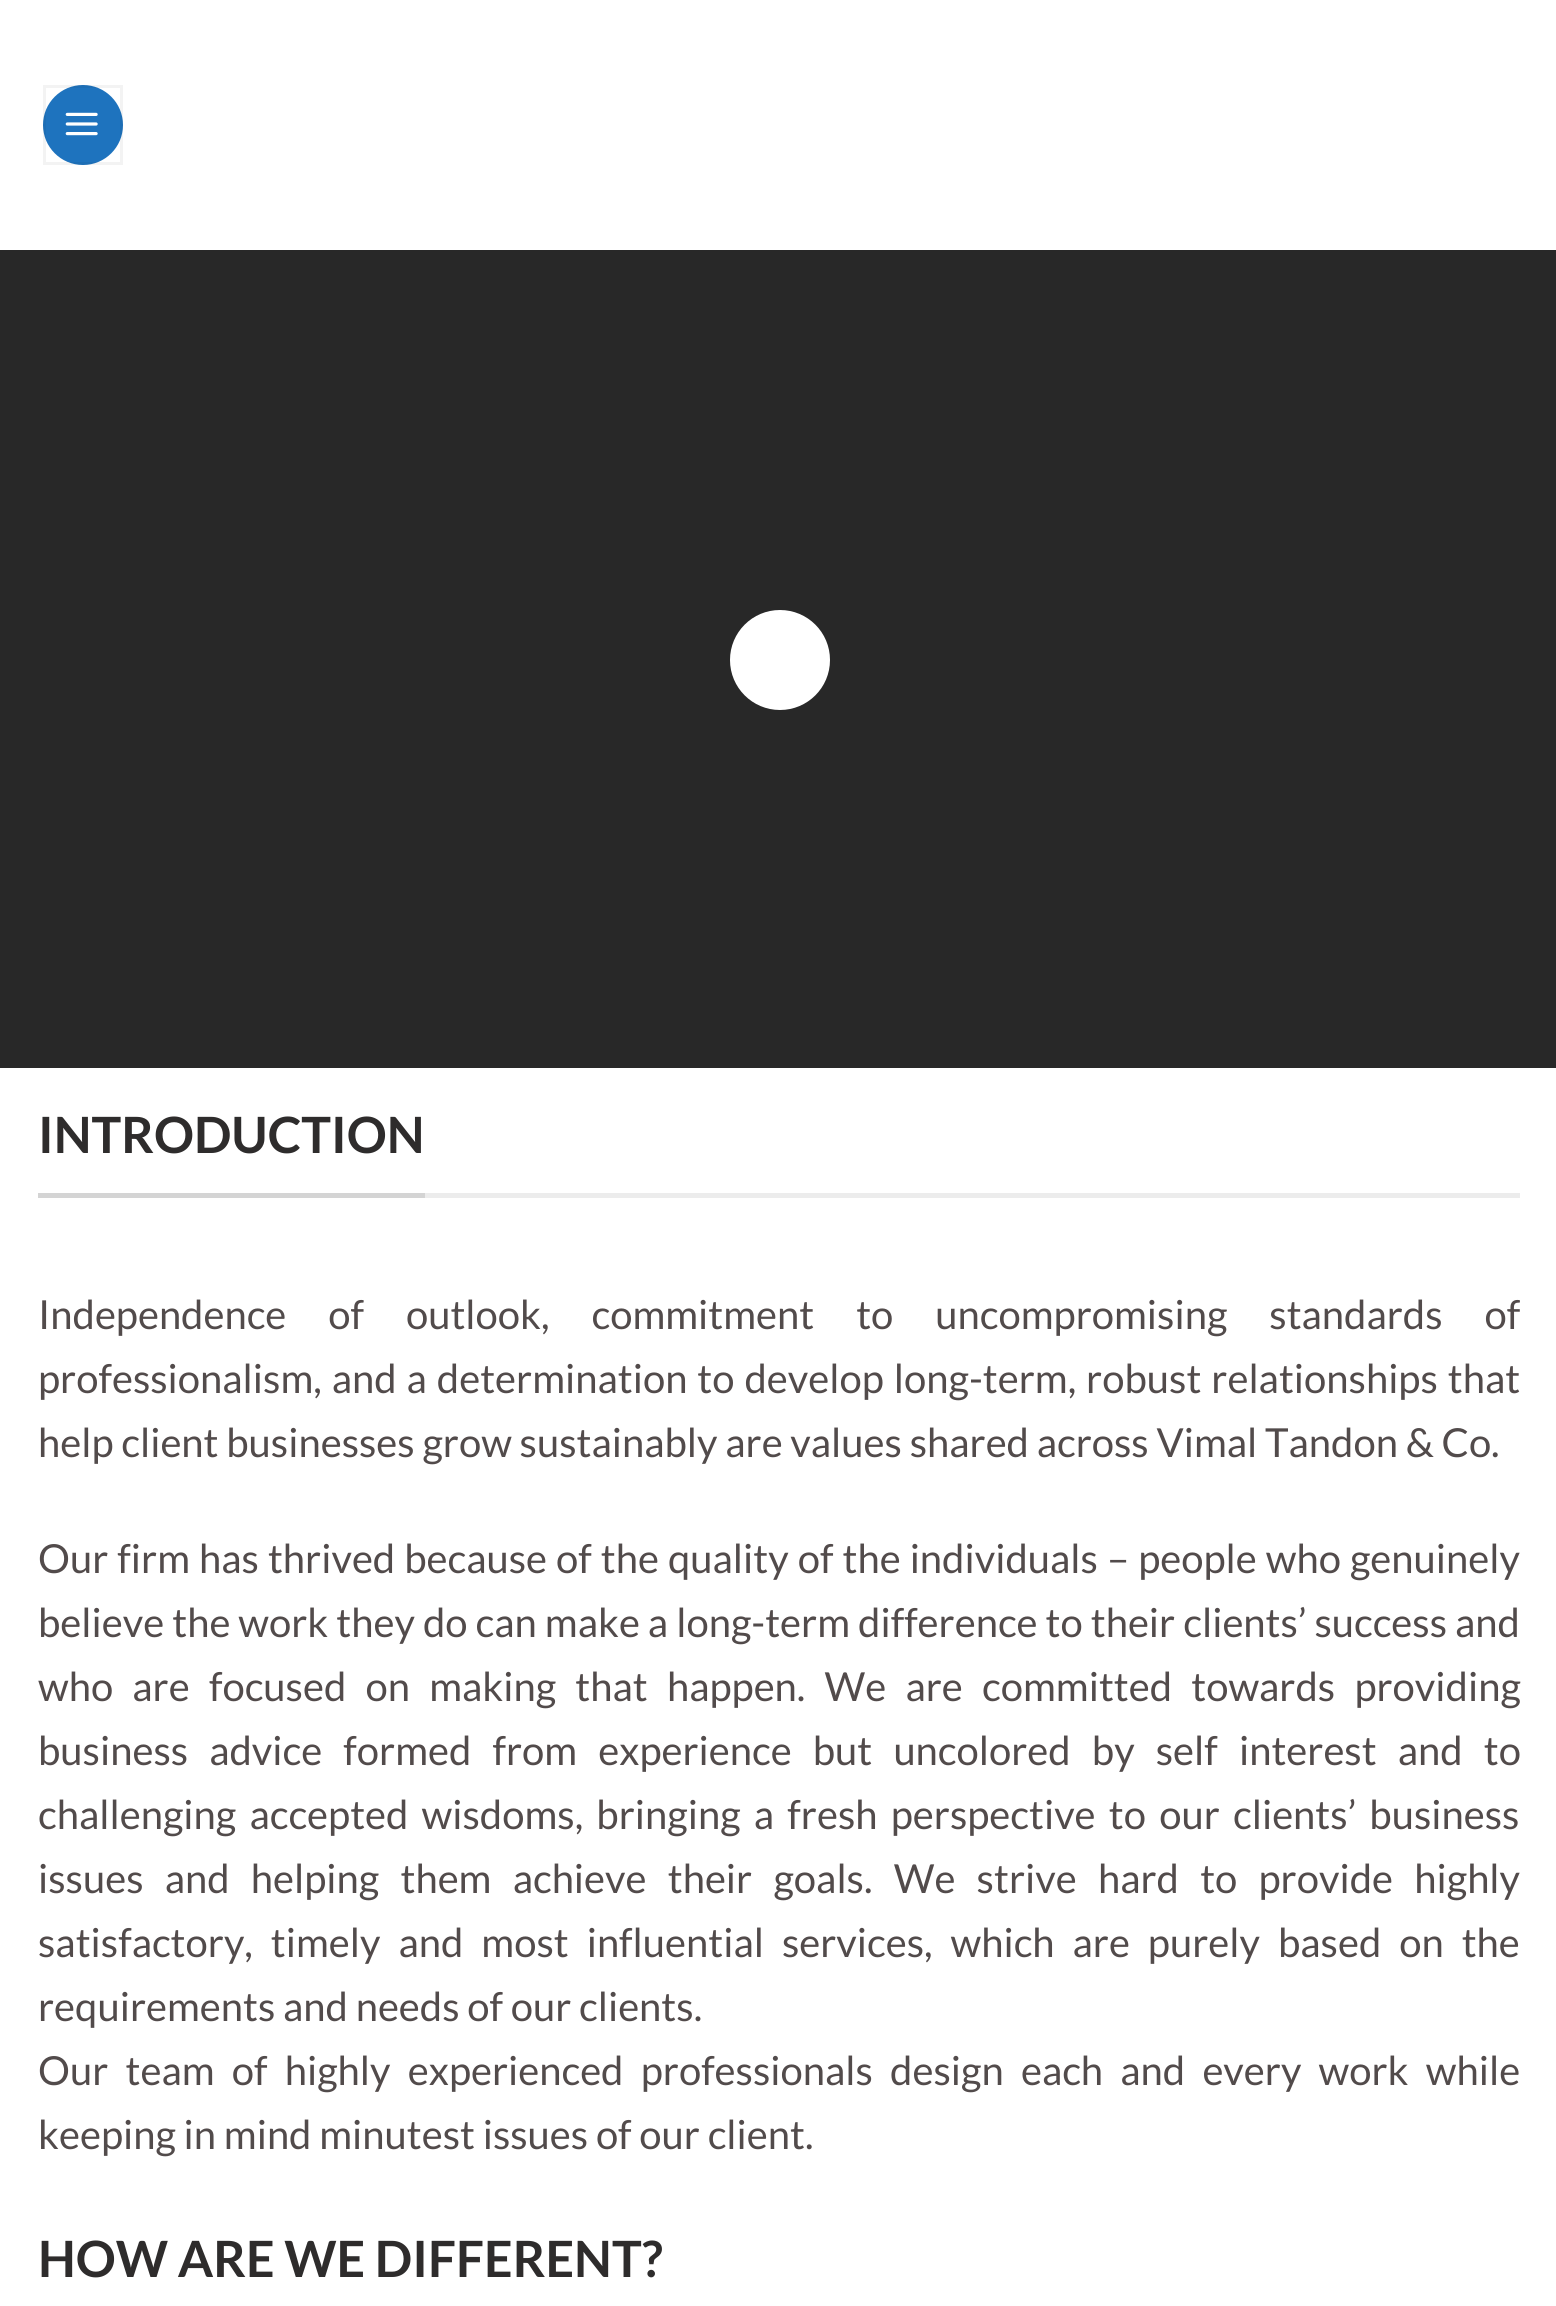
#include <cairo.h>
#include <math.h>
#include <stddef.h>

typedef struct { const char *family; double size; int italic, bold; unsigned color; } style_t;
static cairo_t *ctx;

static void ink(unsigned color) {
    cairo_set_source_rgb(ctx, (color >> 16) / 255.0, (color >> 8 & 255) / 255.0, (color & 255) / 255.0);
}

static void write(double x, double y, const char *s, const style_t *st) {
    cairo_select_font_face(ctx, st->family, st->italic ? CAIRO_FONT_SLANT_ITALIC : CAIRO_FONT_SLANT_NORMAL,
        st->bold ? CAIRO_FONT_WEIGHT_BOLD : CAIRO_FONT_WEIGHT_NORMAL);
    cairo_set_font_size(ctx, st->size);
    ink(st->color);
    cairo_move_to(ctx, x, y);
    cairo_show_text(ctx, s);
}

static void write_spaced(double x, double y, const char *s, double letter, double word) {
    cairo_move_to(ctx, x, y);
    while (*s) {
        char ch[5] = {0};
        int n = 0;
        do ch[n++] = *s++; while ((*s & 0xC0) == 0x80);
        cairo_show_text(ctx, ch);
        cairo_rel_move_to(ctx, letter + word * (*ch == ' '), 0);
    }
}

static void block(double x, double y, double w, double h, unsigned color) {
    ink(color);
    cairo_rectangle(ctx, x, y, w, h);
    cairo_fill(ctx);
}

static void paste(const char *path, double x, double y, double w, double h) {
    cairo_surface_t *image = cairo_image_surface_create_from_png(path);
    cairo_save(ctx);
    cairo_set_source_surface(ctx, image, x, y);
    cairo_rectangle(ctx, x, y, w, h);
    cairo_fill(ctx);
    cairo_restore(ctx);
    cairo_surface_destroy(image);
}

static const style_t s1 = {"Lato", 50, 0, 1, 0x2e2c2c};
static const style_t s2 = {"Lato", 40, 0, 0, 0x524b4b};

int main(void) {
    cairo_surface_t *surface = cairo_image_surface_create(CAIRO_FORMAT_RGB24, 1556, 2306);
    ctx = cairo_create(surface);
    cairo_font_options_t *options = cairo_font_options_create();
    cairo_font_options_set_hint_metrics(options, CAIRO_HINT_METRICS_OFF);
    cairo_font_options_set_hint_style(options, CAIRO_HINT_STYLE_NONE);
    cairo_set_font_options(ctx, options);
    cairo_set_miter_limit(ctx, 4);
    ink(0xffffff);
    cairo_paint(ctx);
    ink(0x1e73be);
    cairo_arc(ctx, 83, 125, 40, 0, 2 * M_PI);
    cairo_fill(ctx);
    cairo_rectangle(ctx, 44.5, 86.5, 77, 77);
    cairo_set_source_rgba(ctx, 0, 0, 0, 0.05);
    cairo_set_line_width(ctx, 3);
    cairo_stroke(ctx);
    paste("pic1.png", 65, 112, 33, 24);
    block(0, 250, 1556, 818, 0x282828);
    ink(0xffffff);
    cairo_arc(ctx, 780, 660, 50, 0, 2 * M_PI);
    cairo_fill(ctx);
    block(425, 1193, 1095, 5, 0xececec);
    block(38, 1193, 387, 5, 0xd4d4d4);
    write(38, 1153, "INTRODUCTION", &s1);
    cairo_select_font_face(ctx, "Lato", CAIRO_FONT_SLANT_NORMAL, CAIRO_FONT_WEIGHT_NORMAL);
    cairo_set_font_size(ctx, 40);
    ink(0x524b4b);
    write_spaced(38, 1329, "Independence of outlook, commitment to uncompromising standards of", 0, 34.25);
    write_spaced(38, 1393, "professionalism, and a determination to develop long-term, robust relationships that", 0, 2.25);
    write(38, 1457, "help client businesses grow sustainably are values shared across Vimal Tandon & Co.", &s2);
    write_spaced(38, 1573, "Our firm has thrived because of the quality of the individuals – people who genuinely", 0, 1.3);
    write_spaced(38, 1637, "believe the work they do can make a long-term difference to their clients’ success and", 0, 0.3);
    write_spaced(38, 1701, "who are focused on making that happen. We are committed towards providing", 0, 11.5);
    write_spaced(38, 1765, "business advice formed from experience but uncolored by self interest and to", 0, 13.4);
    write_spaced(38, 1829, "challenging accepted wisdoms, bringing a fresh perspective to our clients’ business", 0, 5.5);
    write_spaced(38, 1893, "issues and helping them achieve their goals. We strive hard to provide highly", 0, 13.5);
    write_spaced(38, 1957, "satisfactory, timely and most influential services, which are purely based on the", 0, 10.25);
    write(38, 2021, "requirements and needs of our clients.", &s2);
    write_spaced(38, 2085, "Our team of highly experienced professionals design each and every work while", 0, 9.5);
    write(38, 2149, "keeping in mind minutest issues of our client.", &s2);
    write(38, 2277, "HOW ARE WE DIFFERENT?", &s1);
    cairo_surface_write_to_png(surface, "screenshot.png");
    cairo_font_options_destroy(options);
    cairo_destroy(ctx);
    cairo_surface_destroy(surface);
    return 0;
}
